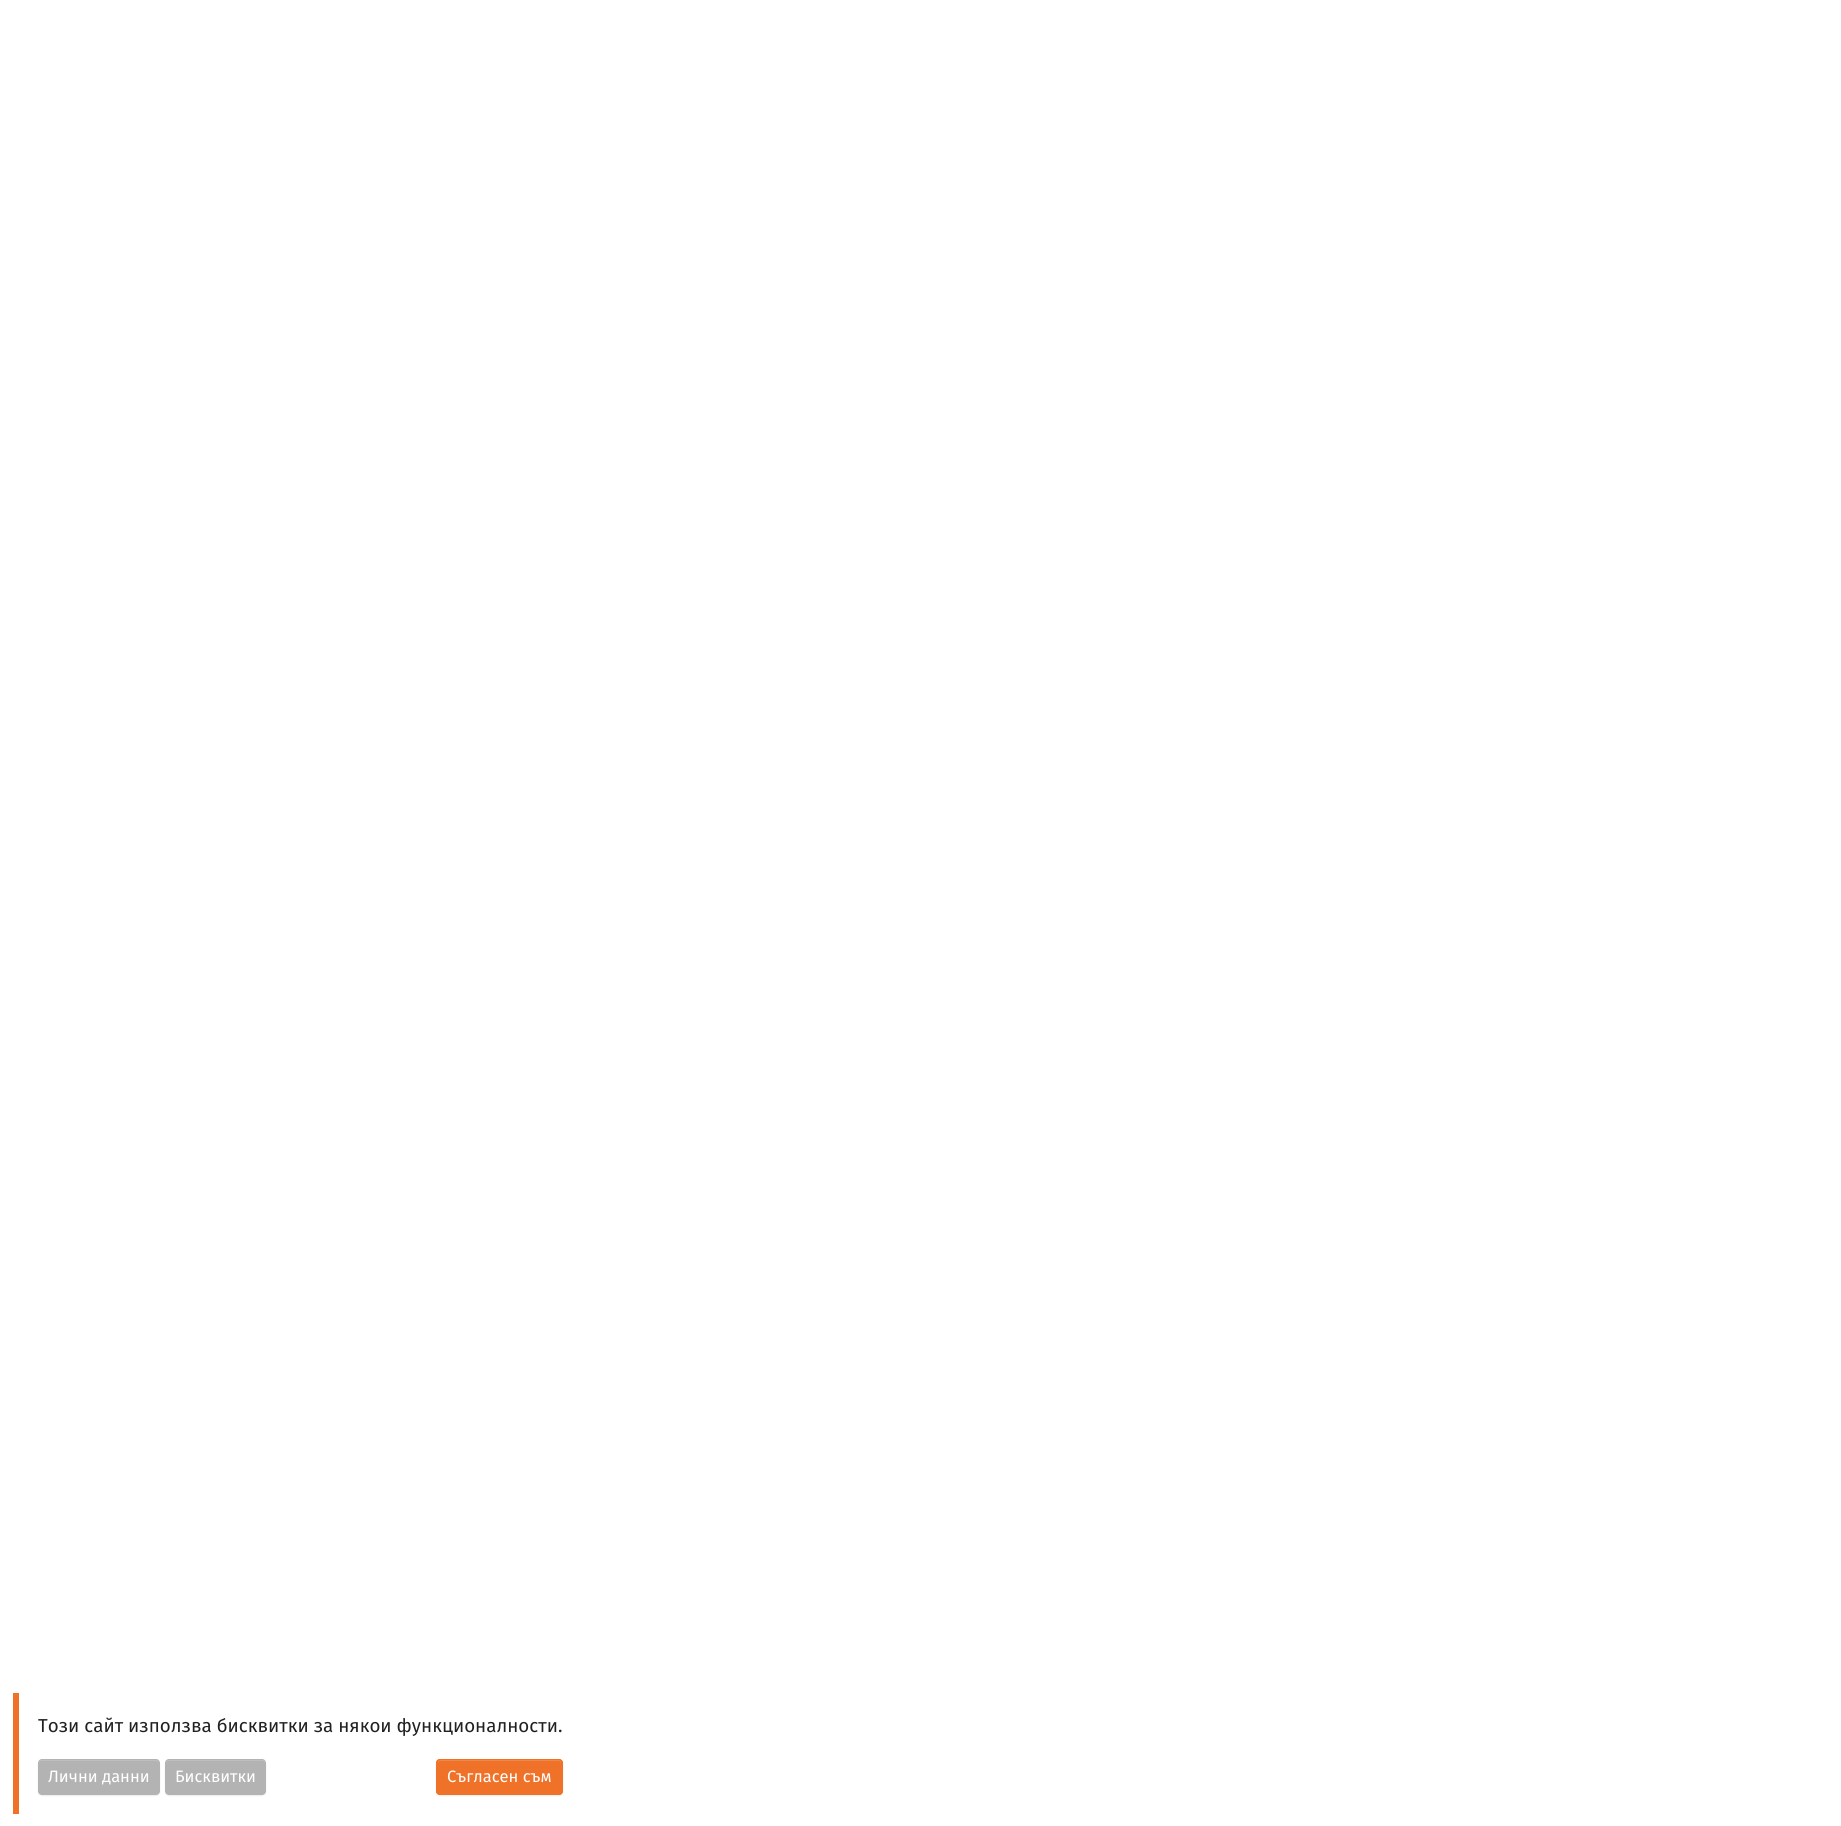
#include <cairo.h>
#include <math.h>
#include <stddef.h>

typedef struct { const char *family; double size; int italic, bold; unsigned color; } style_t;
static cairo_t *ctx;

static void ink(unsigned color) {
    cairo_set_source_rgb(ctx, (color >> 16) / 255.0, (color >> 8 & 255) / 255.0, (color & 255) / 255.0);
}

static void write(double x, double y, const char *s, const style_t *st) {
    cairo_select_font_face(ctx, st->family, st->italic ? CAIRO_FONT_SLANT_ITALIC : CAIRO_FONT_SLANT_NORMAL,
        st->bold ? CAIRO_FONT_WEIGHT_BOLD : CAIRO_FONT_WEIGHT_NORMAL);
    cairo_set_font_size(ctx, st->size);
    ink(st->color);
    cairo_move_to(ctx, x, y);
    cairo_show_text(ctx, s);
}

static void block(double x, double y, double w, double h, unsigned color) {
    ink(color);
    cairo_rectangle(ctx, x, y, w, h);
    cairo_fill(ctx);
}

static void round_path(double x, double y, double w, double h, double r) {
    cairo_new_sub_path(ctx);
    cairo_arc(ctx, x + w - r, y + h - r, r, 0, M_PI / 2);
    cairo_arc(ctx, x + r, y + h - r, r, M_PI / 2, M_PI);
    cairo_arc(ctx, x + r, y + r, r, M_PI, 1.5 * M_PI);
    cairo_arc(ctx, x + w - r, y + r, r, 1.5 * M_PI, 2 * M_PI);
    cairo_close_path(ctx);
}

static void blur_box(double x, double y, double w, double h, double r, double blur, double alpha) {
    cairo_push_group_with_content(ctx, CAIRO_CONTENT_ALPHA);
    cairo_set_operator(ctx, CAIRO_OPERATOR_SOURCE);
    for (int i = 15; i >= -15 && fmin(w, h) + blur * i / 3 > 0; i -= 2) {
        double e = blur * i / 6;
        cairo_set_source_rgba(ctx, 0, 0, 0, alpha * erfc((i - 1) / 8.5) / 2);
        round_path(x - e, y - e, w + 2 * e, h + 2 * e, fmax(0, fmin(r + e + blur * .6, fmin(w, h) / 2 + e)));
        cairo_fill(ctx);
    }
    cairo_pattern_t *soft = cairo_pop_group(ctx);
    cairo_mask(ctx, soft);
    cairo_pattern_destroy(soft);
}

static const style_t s1 = {"Fira Sans", 18.75, 0, 0, 0x202121};
static const style_t s2 = {"Fira Sans", 16.5, 0, 0, 0xffffff};

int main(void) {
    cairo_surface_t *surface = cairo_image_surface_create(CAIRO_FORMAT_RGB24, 1841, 1826);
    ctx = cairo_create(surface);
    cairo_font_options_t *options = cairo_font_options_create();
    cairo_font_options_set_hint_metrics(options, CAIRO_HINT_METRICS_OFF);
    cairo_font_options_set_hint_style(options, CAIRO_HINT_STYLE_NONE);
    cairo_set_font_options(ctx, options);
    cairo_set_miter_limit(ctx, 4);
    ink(0xffffff);
    cairo_paint(ctx);
    block(13, 1693, 6, 121, 0xf07228);
    write(38, 1732, "Този сайт използва бисквитки за някои функционалности.", &s1);
    cairo_save(ctx);
    cairo_set_fill_rule(ctx, CAIRO_FILL_RULE_EVEN_ODD);
    cairo_new_path(ctx);
    cairo_move_to(ctx, 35, 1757);
    cairo_line_to(ctx, 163, 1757);
    cairo_line_to(ctx, 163, 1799);
    cairo_line_to(ctx, 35, 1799);
    cairo_close_path(ctx);
    cairo_move_to(ctx, 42, 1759);
    cairo_line_to(ctx, 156, 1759);
    cairo_curve_to(ctx, 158, 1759, 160, 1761, 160, 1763);
    cairo_line_to(ctx, 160, 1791);
    cairo_curve_to(ctx, 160, 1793, 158, 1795, 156, 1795);
    cairo_line_to(ctx, 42, 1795);
    cairo_curve_to(ctx, 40, 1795, 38, 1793, 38, 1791);
    cairo_line_to(ctx, 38, 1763);
    cairo_curve_to(ctx, 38, 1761, 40, 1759, 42, 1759);
    cairo_close_path(ctx);
    cairo_clip(ctx);
    ink(0x000000);
    blur_box(38, 1760, 122, 36, 4, 0.5, 0.07);
    cairo_restore(ctx);
    cairo_set_source_rgba(ctx, 0, 0, 0, 0.3);
    round_path(38, 1759, 122, 36, 4);
    cairo_fill(ctx);
    ink(0xbebebe);
    cairo_new_path(ctx);
    cairo_move_to(ctx, 41, 1761);
    cairo_line_to(ctx, 156, 1761);
    cairo_curve_to(ctx, 158, 1761, 159, 1762, 159, 1764);
    cairo_line_to(ctx, 159, 1762);
    cairo_curve_to(ctx, 159, 1761, 158, 1760, 156, 1760);
    cairo_line_to(ctx, 42, 1760);
    cairo_curve_to(ctx, 40, 1760, 39, 1761, 39, 1762);
    cairo_line_to(ctx, 39, 1764);
    cairo_curve_to(ctx, 39, 1762, 40, 1761, 41, 1761);
    cairo_close_path(ctx);
    cairo_fill(ctx);
    write(48, 1782, "Лични данни", &s2);
    cairo_save(ctx);
    cairo_set_fill_rule(ctx, CAIRO_FILL_RULE_EVEN_ODD);
    cairo_new_path(ctx);
    cairo_move_to(ctx, 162, 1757);
    cairo_line_to(ctx, 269, 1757);
    cairo_line_to(ctx, 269, 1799);
    cairo_line_to(ctx, 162, 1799);
    cairo_close_path(ctx);
    cairo_move_to(ctx, 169, 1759);
    cairo_line_to(ctx, 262, 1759);
    cairo_curve_to(ctx, 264, 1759, 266, 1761, 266, 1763);
    cairo_line_to(ctx, 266, 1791);
    cairo_curve_to(ctx, 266, 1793, 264, 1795, 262, 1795);
    cairo_line_to(ctx, 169, 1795);
    cairo_curve_to(ctx, 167, 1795, 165, 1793, 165, 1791);
    cairo_line_to(ctx, 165, 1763);
    cairo_curve_to(ctx, 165, 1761, 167, 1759, 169, 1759);
    cairo_close_path(ctx);
    cairo_clip(ctx);
    ink(0x000000);
    blur_box(165, 1760, 101, 36, 4, 0.5, 0.07);
    cairo_restore(ctx);
    cairo_set_source_rgba(ctx, 0, 0, 0, 0.3);
    round_path(165, 1759, 101, 36, 4);
    cairo_fill(ctx);
    ink(0xbebebe);
    cairo_new_path(ctx);
    cairo_move_to(ctx, 169, 1761);
    cairo_line_to(ctx, 262, 1761);
    cairo_curve_to(ctx, 264, 1761, 265, 1762, 265, 1764);
    cairo_line_to(ctx, 265, 1762);
    cairo_curve_to(ctx, 265, 1761, 264, 1760, 262, 1760);
    cairo_line_to(ctx, 168, 1760);
    cairo_curve_to(ctx, 167, 1760, 166, 1761, 166, 1762);
    cairo_line_to(ctx, 166, 1764);
    cairo_curve_to(ctx, 166, 1762, 167, 1761, 169, 1761);
    cairo_close_path(ctx);
    cairo_fill(ctx);
    write(175, 1782, "Бисквитки", &s2);
    ink(0x000000);
    blur_box(436, 1760, 127, 36, 4, 0.5, 0.07);
    ink(0xf07228);
    round_path(436, 1759, 127, 36, 4);
    cairo_fill(ctx);
    ink(0xf28748);
    cairo_new_path(ctx);
    cairo_move_to(ctx, 440, 1761);
    cairo_line_to(ctx, 559, 1761);
    cairo_curve_to(ctx, 560, 1761, 561, 1762, 561, 1764);
    cairo_line_to(ctx, 561, 1762);
    cairo_curve_to(ctx, 561, 1761, 560, 1760, 558, 1760);
    cairo_line_to(ctx, 440, 1760);
    cairo_curve_to(ctx, 439, 1760, 438, 1761, 438, 1762);
    cairo_line_to(ctx, 438, 1764);
    cairo_curve_to(ctx, 438, 1762, 439, 1761, 440, 1761);
    cairo_close_path(ctx);
    cairo_fill(ctx);
    round_path(436.5, 1759.5, 126, 35, 3.5);
    ink(0xf07228);
    cairo_set_line_width(ctx, 1);
    cairo_stroke(ctx);
    write(447, 1782, "Съгласен съм", &s2);
    cairo_surface_write_to_png(surface, "screenshot.png");
    cairo_font_options_destroy(options);
    cairo_destroy(ctx);
    cairo_surface_destroy(surface);
    return 0;
}
